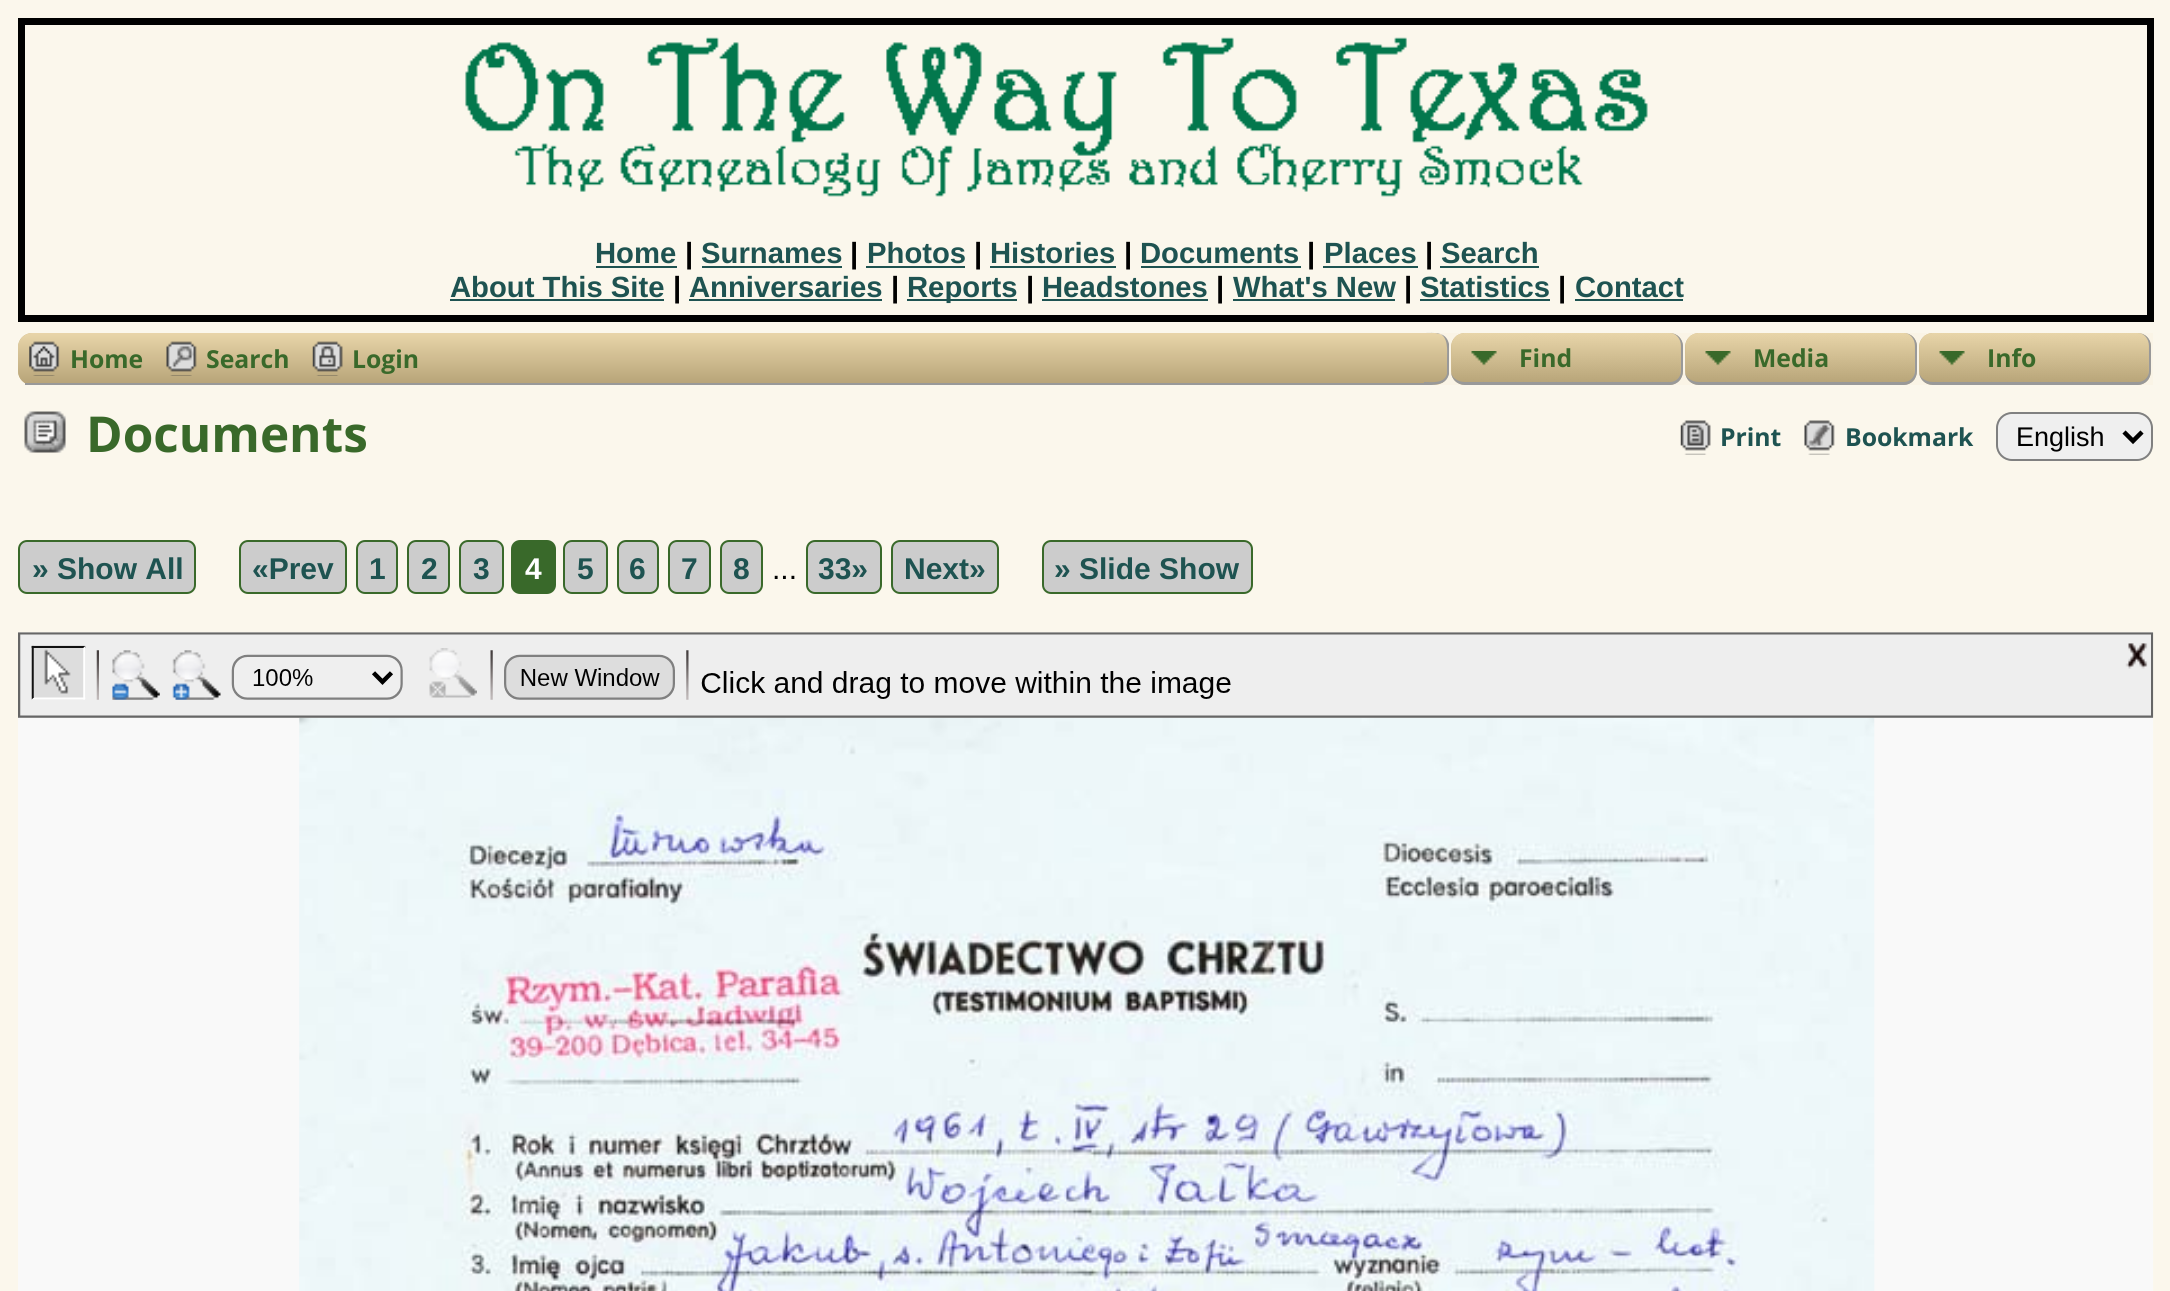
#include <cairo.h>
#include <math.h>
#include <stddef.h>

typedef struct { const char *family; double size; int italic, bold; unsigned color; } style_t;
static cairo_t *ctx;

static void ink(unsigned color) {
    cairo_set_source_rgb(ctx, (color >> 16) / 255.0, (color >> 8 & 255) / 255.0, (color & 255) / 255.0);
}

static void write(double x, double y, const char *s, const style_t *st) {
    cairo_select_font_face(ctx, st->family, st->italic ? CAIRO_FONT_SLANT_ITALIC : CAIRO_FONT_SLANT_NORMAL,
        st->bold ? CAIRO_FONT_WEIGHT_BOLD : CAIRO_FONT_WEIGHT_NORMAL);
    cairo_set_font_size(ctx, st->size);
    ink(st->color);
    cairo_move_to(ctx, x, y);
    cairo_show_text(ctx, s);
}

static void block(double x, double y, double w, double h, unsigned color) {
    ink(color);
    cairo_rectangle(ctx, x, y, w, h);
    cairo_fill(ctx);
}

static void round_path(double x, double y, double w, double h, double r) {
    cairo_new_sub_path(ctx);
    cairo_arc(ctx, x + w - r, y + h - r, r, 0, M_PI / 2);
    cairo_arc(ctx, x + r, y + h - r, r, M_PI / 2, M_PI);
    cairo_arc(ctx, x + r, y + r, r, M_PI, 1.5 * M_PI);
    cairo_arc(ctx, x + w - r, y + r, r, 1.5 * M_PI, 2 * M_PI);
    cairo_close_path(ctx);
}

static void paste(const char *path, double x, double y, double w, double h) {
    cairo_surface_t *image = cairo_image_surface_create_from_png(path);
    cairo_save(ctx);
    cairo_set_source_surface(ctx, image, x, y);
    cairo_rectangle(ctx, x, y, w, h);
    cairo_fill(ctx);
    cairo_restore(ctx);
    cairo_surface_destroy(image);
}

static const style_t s1 = {"Liberation Sans", 29.25, 0, 1, 0x1e5351};
static const style_t s2 = {"Liberation Sans", 29.25, 0, 1, 0x000000};
static const style_t s3 = {"Open Sans", 24.75, 0, 1, 0x39692a};
static const style_t s4 = {"Open Sans", 49.5, 0, 1, 0x39692a};
static const style_t s5 = {"Open Sans", 24.75, 0, 1, 0x1e5351};
static const style_t s6 = {"Liberation Sans", 27, 0, 0, 0x000000};
static const style_t s7 = {"Liberation Sans", 30, 0, 1, 0x1e5351};
static const style_t s8 = {"Liberation Sans", 30, 0, 1, 0xffffff};
static const style_t s9 = {"Liberation Sans", 30, 0, 0, 0x000000};

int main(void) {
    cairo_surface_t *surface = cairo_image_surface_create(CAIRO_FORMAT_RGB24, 2170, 1291);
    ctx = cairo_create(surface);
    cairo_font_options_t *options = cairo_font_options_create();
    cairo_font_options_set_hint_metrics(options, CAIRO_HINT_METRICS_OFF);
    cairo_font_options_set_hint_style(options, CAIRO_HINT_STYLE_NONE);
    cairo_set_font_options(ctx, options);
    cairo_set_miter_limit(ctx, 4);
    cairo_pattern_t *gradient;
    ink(0xfbf7ec);
    cairo_paint(ctx);
    block(18, 18, 2135, 7, 0x000000);
    block(2147, 18, 7, 304, 0x000000);
    block(18, 315, 2135, 7, 0x000000);
    block(18, 18, 7, 304, 0x000000);
    paste("pic1.png", 465, 37, 1183, 160);
    write(595, 263, "Home", &s1);
    block(596, 266, 81, 2, 0x1e5351);
    write(685, 263, "|", &s2);
    write(701, 263, "Surnames", &s1);
    block(702, 266, 140, 2, 0x1e5351);
    write(850, 263, "|", &s2);
    write(867, 263, "Photos", &s1);
    block(866, 266, 99, 2, 0x1e5351);
    write(974, 263, "|", &s2);
    write(990, 263, "Histories", &s1);
    block(990, 266, 126, 2, 0x1e5351);
    write(1124, 263, "|", &s2);
    write(1140, 263, "Documents", &s1);
    block(1141, 266, 160, 2, 0x1e5351);
    write(1307, 263, "|", &s2);
    write(1324, 263, "Places", &s1);
    block(1323, 266, 95, 2, 0x1e5351);
    write(1425, 263, "|", &s2);
    write(1441, 263, "Search", &s1);
    block(1440, 266, 99, 2, 0x1e5351);
    write(450, 297, "About This Site", &s1);
    block(450, 299, 214, 2, 0x1e5351);
    write(673, 297, "|", &s2);
    write(689, 297, "Anniversaries", &s1);
    block(689, 299, 193, 2, 0x1e5351);
    write(891, 297, "|", &s2);
    block(907, 299, 110, 2, 0x1e5351);
    write(907, 297, "Reports", &s1);
    write(1026, 297, "|", &s2);
    write(1042, 297, "Headstones", &s1);
    block(1042, 299, 166, 2, 0x1e5351);
    write(1216, 297, "|", &s2);
    write(1233, 297, "What's New", &s1);
    block(1233, 299, 162, 2, 0x1e5351);
    write(1404, 297, "|", &s2);
    write(1420, 297, "Statistics", &s1);
    block(1420, 299, 130, 2, 0x1e5351);
    write(1558, 297, "|", &s2);
    write(1575, 297, "Contact", &s1);
    block(1575, 299, 108, 2, 0x1e5351);
    ink(0xd0bc91);
    round_path(18, 333, 2135, 52, 14);
    cairo_fill(ctx);
    cairo_save(ctx);
    round_path(18, 333, 2135, 52, 14);
    cairo_clip(ctx);
    gradient = cairo_pattern_create_linear(1086, 333, 1086, 383);
    cairo_pattern_add_color_stop_rgba(gradient, 0, 0.91, 0.835, 0.663, 1);
    cairo_pattern_add_color_stop_rgba(gradient, 1, 0.722, 0.647, 0.475, 1);
    cairo_set_source(ctx, gradient);
    cairo_pattern_destroy(gradient);
    cairo_new_path(ctx);
    cairo_move_to(ctx, 32, 333);
    cairo_line_to(ctx, 2139, 333);
    cairo_curve_to(ctx, 2146.5, 333, 2153, 339.5, 2153, 347);
    cairo_line_to(ctx, 2153, 383);
    cairo_line_to(ctx, 18, 383);
    cairo_line_to(ctx, 18, 347);
    cairo_curve_to(ctx, 18, 339.5, 24.5, 333, 32, 333);
    cairo_close_path(ctx);
    cairo_fill(ctx);
    cairo_restore(ctx);
    block(25, 383, 1399, 2, 0x999999);
    paste("pic2.png", 29, 341, 31, 35);
    write(70, 368, "Home", &s3);
    paste("pic3.png", 166, 341, 31, 35);
    write(206, 368, "Search", &s3);
    paste("pic4.png", 312, 341, 31, 35);
    write(352, 368, "Login", &s3);
    block(1435, 333, 718, 52, 0xfaf4e6);
    cairo_save(ctx);
    cairo_new_path(ctx);
    cairo_move_to(ctx, 1424, 333);
    cairo_line_to(ctx, 1435, 333);
    cairo_curve_to(ctx, 1442.5, 333, 1449, 339.5, 1449, 347);
    cairo_line_to(ctx, 1449, 371);
    cairo_curve_to(ctx, 1449, 378.5, 1442.5, 385, 1435, 385);
    cairo_line_to(ctx, 1424, 385);
    cairo_close_path(ctx);
    cairo_clip(ctx);
    gradient = cairo_pattern_create_linear(1436, 333, 1436, 383);
    cairo_pattern_add_color_stop_rgba(gradient, 0, 0.91, 0.835, 0.663, 1);
    cairo_pattern_add_color_stop_rgba(gradient, 1, 0.722, 0.647, 0.475, 1);
    cairo_set_source(ctx, gradient);
    cairo_pattern_destroy(gradient);
    cairo_rectangle(ctx, 1424, 333, 25, 50);
    cairo_fill(ctx);
    gradient = cairo_pattern_create_linear(1436, 383, 1436, 432);
    cairo_pattern_add_color_stop_rgba(gradient, 0, 0.91, 0.835, 0.663, 1);
    cairo_pattern_add_color_stop_rgba(gradient, 1, 0.722, 0.647, 0.475, 1);
    cairo_set_source(ctx, gradient);
    cairo_pattern_destroy(gradient);
    cairo_rectangle(ctx, 1424, 383, 25, 2);
    cairo_fill(ctx);
    cairo_restore(ctx);
    ink(0x999999);
    cairo_set_fill_rule(ctx, CAIRO_FILL_RULE_EVEN_ODD);
    cairo_new_path(ctx);
    cairo_move_to(ctx, 1424, 333);
    cairo_curve_to(ctx, 1434, 333, 1446, 331, 1449, 344);
    cairo_line_to(ctx, 1449, 374);
    cairo_curve_to(ctx, 1446, 386, 1434, 385, 1424, 385);
    cairo_close_path(ctx);
    cairo_move_to(ctx, 1424, 333);
    cairo_line_to(ctx, 1438, 333);
    cairo_curve_to(ctx, 1449, 336, 1447, 351, 1447, 359);
    cairo_line_to(ctx, 1447, 374);
    cairo_curve_to(ctx, 1444, 384, 1432, 382, 1424, 382);
    cairo_close_path(ctx);
    cairo_fill(ctx);
    ink(0xd0bc91);
    round_path(1451, 333, 232, 52, 14);
    cairo_fill(ctx);
    paste("pic5.png", 1451, 333, 230, 50);
    ink(0x999999);
    cairo_new_path(ctx);
    cairo_move_to(ctx, 1465, 333);
    cairo_line_to(ctx, 1670, 333);
    cairo_curve_to(ctx, 1677, 333, 1683, 339, 1683, 346);
    cairo_line_to(ctx, 1683, 371);
    cairo_curve_to(ctx, 1683, 379, 1677, 385, 1670, 385);
    cairo_line_to(ctx, 1465, 385);
    cairo_curve_to(ctx, 1457, 385, 1451, 379, 1451, 371);
    cairo_line_to(ctx, 1451, 346);
    cairo_curve_to(ctx, 1451, 339, 1457, 333, 1465, 333);
    cairo_close_path(ctx);
    cairo_move_to(ctx, 1465, 333);
    cairo_line_to(ctx, 1670, 333);
    cairo_curve_to(ctx, 1676, 333, 1681, 339, 1681, 346);
    cairo_line_to(ctx, 1681, 371);
    cairo_curve_to(ctx, 1681, 377, 1676, 382, 1670, 382);
    cairo_line_to(ctx, 1465, 382);
    cairo_curve_to(ctx, 1457, 382, 1451, 377, 1451, 371);
    cairo_line_to(ctx, 1451, 346);
    cairo_curve_to(ctx, 1451, 339, 1457, 333, 1465, 333);
    cairo_close_path(ctx);
    cairo_fill(ctx);
    write(1519, 367, "Find", &s3);
    ink(0xd0bc91);
    round_path(1685, 333, 232, 52, 14);
    cairo_fill(ctx);
    paste("pic6.png", 1685, 333, 230, 50);
    ink(0x999999);
    cairo_new_path(ctx);
    cairo_move_to(ctx, 1699, 333);
    cairo_line_to(ctx, 1904, 333);
    cairo_curve_to(ctx, 1911, 333, 1917, 339, 1917, 346);
    cairo_line_to(ctx, 1917, 371);
    cairo_curve_to(ctx, 1917, 379, 1911, 385, 1904, 385);
    cairo_line_to(ctx, 1699, 385);
    cairo_curve_to(ctx, 1691, 385, 1685, 379, 1685, 371);
    cairo_line_to(ctx, 1685, 346);
    cairo_curve_to(ctx, 1685, 339, 1691, 333, 1699, 333);
    cairo_close_path(ctx);
    cairo_move_to(ctx, 1699, 333);
    cairo_line_to(ctx, 1904, 333);
    cairo_curve_to(ctx, 1910, 333, 1915, 339, 1915, 346);
    cairo_line_to(ctx, 1915, 371);
    cairo_curve_to(ctx, 1915, 377, 1910, 382, 1904, 382);
    cairo_line_to(ctx, 1699, 382);
    cairo_curve_to(ctx, 1691, 382, 1685, 377, 1685, 371);
    cairo_line_to(ctx, 1685, 346);
    cairo_curve_to(ctx, 1685, 339, 1691, 333, 1699, 333);
    cairo_close_path(ctx);
    cairo_fill(ctx);
    write(1753, 367, "Media", &s3);
    ink(0xd0bc91);
    round_path(1919, 333, 232, 52, 14);
    cairo_fill(ctx);
    paste("pic7.png", 1919, 333, 230, 50);
    ink(0x999999);
    cairo_new_path(ctx);
    cairo_move_to(ctx, 1933, 333);
    cairo_line_to(ctx, 2138, 333);
    cairo_curve_to(ctx, 2145, 333, 2151, 339, 2151, 346);
    cairo_line_to(ctx, 2151, 371);
    cairo_curve_to(ctx, 2151, 379, 2145, 385, 2138, 385);
    cairo_line_to(ctx, 1933, 385);
    cairo_curve_to(ctx, 1925, 385, 1919, 379, 1919, 371);
    cairo_line_to(ctx, 1919, 346);
    cairo_curve_to(ctx, 1919, 339, 1925, 333, 1933, 333);
    cairo_close_path(ctx);
    cairo_move_to(ctx, 1933, 333);
    cairo_line_to(ctx, 2138, 333);
    cairo_curve_to(ctx, 2144, 333, 2149, 339, 2149, 346);
    cairo_line_to(ctx, 2149, 371);
    cairo_curve_to(ctx, 2149, 377, 2144, 382, 2138, 382);
    cairo_line_to(ctx, 1933, 382);
    cairo_curve_to(ctx, 1925, 382, 1919, 377, 1919, 371);
    cairo_line_to(ctx, 1919, 346);
    cairo_curve_to(ctx, 1919, 339, 1925, 333, 1933, 333);
    cairo_close_path(ctx);
    cairo_fill(ctx);
    write(1987, 367, "Info", &s3);
    paste("pic8.png", 24, 411, 42, 42);
    write(86, 452, "Documents", &s4);
    paste("pic9.png", 1680, 420, 31, 35);
    write(1720, 446, "Print", &s5);
    paste("pic10.png", 1804, 420, 31, 35);
    write(1845, 446, "Bookmark", &s5);
    ink(0xefefef);
    round_path(1997, 413, 155, 47, 15);
    cairo_fill_preserve(ctx);
    ink(0x808080);
    cairo_stroke(ctx);
    cairo_new_path(ctx);
    cairo_move_to(ctx, 2124, 432);
    cairo_line_to(ctx, 2133, 441);
    cairo_line_to(ctx, 2142, 432);
    ink(0x000000);
    cairo_set_line_width(ctx, 4.5);
    cairo_stroke(ctx);
    write(2016, 446, "English", &s6);
    ink(0xcccccc);
    round_path(19, 541, 176, 52, 8);
    cairo_fill_preserve(ctx);
    ink(0x39692a);
    cairo_set_line_width(ctx, 2);
    cairo_stroke(ctx);
    write(32, 579, "» Show All", &s7);
    ink(0xcccccc);
    round_path(240, 541, 106, 52, 8);
    cairo_fill_preserve(ctx);
    ink(0x39692a);
    cairo_stroke(ctx);
    write(252, 579, "«Prev", &s7);
    ink(0xcccccc);
    round_path(357, 541, 40, 52, 8);
    cairo_fill_preserve(ctx);
    ink(0x39692a);
    cairo_stroke(ctx);
    write(369, 579, "1", &s7);
    ink(0xcccccc);
    round_path(408, 541, 41, 52, 8);
    cairo_fill_preserve(ctx);
    ink(0x39692a);
    cairo_stroke(ctx);
    write(421, 579, "2", &s7);
    ink(0xcccccc);
    round_path(460, 541, 43, 52, 8);
    cairo_fill_preserve(ctx);
    ink(0x39692a);
    cairo_stroke(ctx);
    write(473, 579, "3", &s7);
    ink(0x39692a);
    round_path(512, 541, 43, 52, 8);
    cairo_fill_preserve(ctx);
    cairo_stroke(ctx);
    write(525, 579, "4", &s8);
    ink(0xcccccc);
    round_path(564, 541, 43, 52, 8);
    cairo_fill_preserve(ctx);
    ink(0x39692a);
    cairo_stroke(ctx);
    write(577, 579, "5", &s7);
    ink(0xcccccc);
    round_path(618, 541, 40, 52, 8);
    cairo_fill_preserve(ctx);
    ink(0x39692a);
    cairo_stroke(ctx);
    write(629, 579, "6", &s7);
    ink(0xcccccc);
    round_path(669, 541, 41, 52, 8);
    cairo_fill_preserve(ctx);
    ink(0x39692a);
    cairo_stroke(ctx);
    write(681, 579, "7", &s7);
    ink(0xcccccc);
    round_path(721, 541, 41, 52, 8);
    cairo_fill_preserve(ctx);
    ink(0x39692a);
    cairo_stroke(ctx);
    write(733, 579, "8", &s7);
    write(772, 579, "...", &s9);
    ink(0xcccccc);
    round_path(807, 541, 74, 52, 8);
    cairo_fill_preserve(ctx);
    ink(0x39692a);
    cairo_stroke(ctx);
    write(818, 579, "33»", &s7);
    ink(0xcccccc);
    round_path(892, 541, 106, 52, 8);
    cairo_fill_preserve(ctx);
    ink(0x39692a);
    cairo_stroke(ctx);
    write(904, 579, "Next»", &s7);
    ink(0xcccccc);
    round_path(1043, 541, 209, 52, 8);
    cairo_fill_preserve(ctx);
    ink(0x39692a);
    cairo_stroke(ctx);
    write(1054, 579, "» Slide Show", &s7);
    paste("pic11.png", 18, 632, 2136, 659);
    cairo_surface_write_to_png(surface, "screenshot.png");
    cairo_font_options_destroy(options);
    cairo_destroy(ctx);
    cairo_surface_destroy(surface);
    return 0;
}
